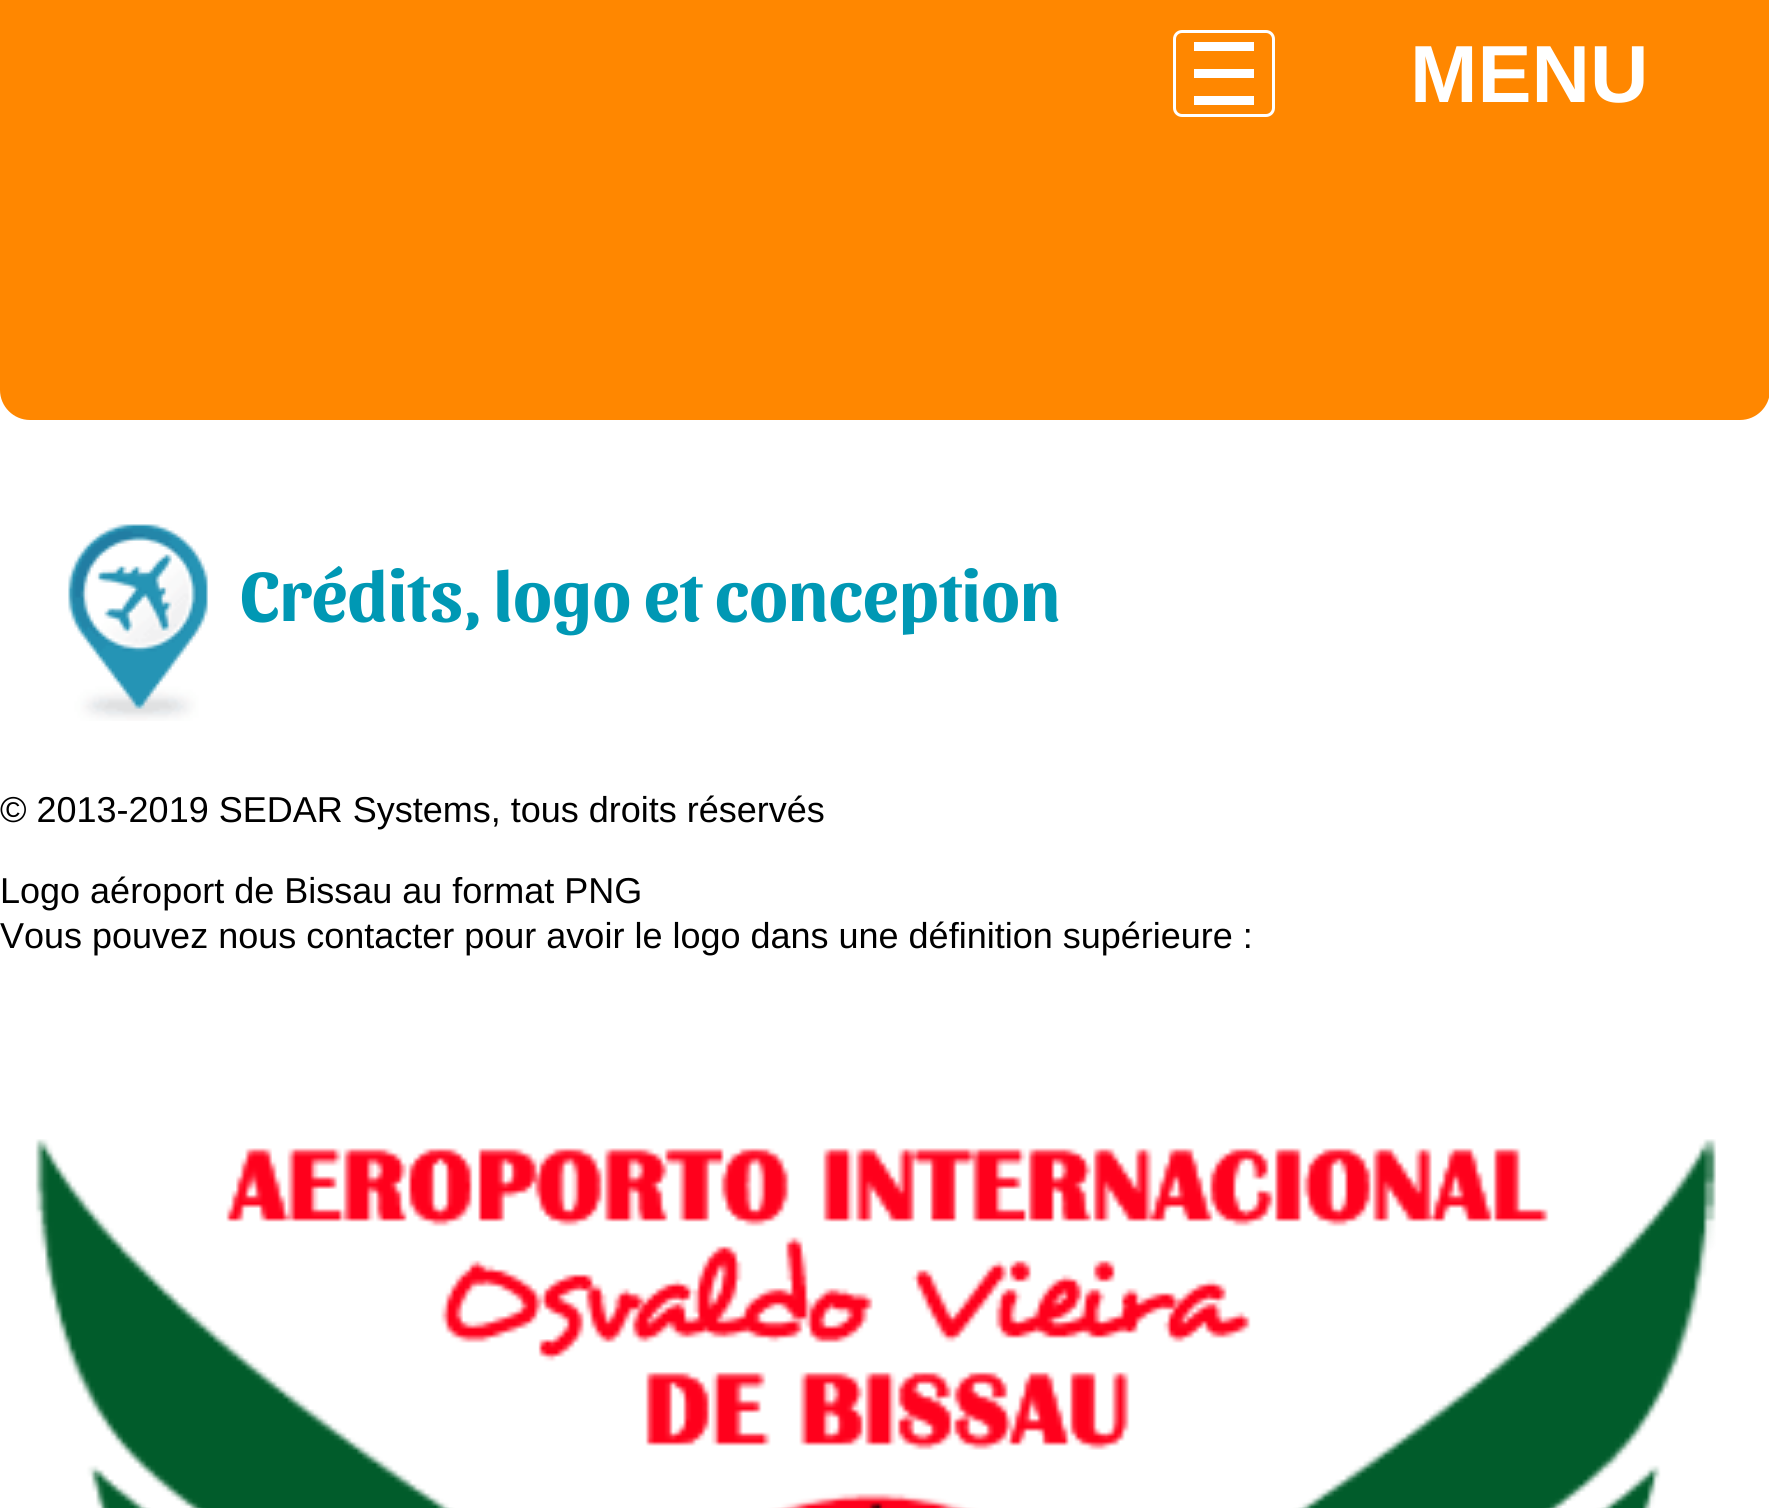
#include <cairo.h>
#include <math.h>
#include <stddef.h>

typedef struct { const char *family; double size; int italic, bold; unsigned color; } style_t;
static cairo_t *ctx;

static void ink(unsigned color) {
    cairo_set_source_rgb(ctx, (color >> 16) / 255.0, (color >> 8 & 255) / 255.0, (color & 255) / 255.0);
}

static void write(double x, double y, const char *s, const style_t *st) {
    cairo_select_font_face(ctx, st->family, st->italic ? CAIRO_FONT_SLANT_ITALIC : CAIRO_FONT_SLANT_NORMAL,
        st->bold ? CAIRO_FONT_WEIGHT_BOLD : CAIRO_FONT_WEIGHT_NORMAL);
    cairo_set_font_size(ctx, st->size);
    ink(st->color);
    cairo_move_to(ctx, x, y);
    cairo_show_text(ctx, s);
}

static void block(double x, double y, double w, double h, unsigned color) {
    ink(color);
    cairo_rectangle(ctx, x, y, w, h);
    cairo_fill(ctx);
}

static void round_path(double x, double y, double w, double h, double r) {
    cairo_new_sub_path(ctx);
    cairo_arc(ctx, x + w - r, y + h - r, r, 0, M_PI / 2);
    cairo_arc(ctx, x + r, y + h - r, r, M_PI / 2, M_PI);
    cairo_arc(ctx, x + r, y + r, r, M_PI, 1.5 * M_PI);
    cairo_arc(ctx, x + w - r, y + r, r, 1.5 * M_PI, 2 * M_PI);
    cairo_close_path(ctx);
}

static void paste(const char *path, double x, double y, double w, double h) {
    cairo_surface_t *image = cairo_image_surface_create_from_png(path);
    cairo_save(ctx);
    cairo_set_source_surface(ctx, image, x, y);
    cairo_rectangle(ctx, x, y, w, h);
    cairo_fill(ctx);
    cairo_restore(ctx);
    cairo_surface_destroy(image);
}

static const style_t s1 = {"Liberation Sans", 81, 0, 1, 0xffffff};
static const style_t s2 = {"Sansita", 72, 0, 1, 0x0098b4};
static const style_t s3 = {"Liberation Sans", 36, 0, 0, 0x000000};

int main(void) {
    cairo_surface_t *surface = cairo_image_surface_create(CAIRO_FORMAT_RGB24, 1769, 1508);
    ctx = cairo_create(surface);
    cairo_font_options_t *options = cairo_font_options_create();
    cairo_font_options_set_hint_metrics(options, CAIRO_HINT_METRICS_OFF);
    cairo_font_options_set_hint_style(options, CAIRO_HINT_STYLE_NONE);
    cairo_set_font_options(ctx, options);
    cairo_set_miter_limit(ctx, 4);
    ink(0xffffff);
    cairo_paint(ctx);
    block(0, 0, 1769, 150, 0xff8700);
    round_path(1174.5, 31.5, 99, 84, 7.5);
    ink(0xffffff);
    cairo_set_line_width(ctx, 3);
    cairo_stroke(ctx);
    block(1194, 42, 60, 9, 0xffffff);
    block(1194, 69, 60, 9, 0xffffff);
    block(1194, 96, 60, 9, 0xffffff);
    write(1410, 102, "MENU", &s1);
    ink(0xff8700);
    cairo_new_path(ctx);
    cairo_move_to(ctx, 0, 150);
    cairo_line_to(ctx, 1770, 150);
    cairo_line_to(ctx, 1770, 390);
    cairo_curve_to(ctx, 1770, 406.5, 1756.5, 420, 1740, 420);
    cairo_line_to(ctx, 30, 420);
    cairo_curve_to(ctx, 13.5, 420, 0, 406.5, 0, 390);
    cairo_close_path(ctx);
    cairo_fill(ctx);
    paste("pic1.png", 68, 524, 140, 197);
    write(240, 621, "Crédits, logo et conception", &s2);
    write(0, 822, "© 2013-2019 SEDAR Systems, tous droits réservés", &s3);
    write(0, 903, "Logo aéroport de Bissau au format PNG", &s3);
    write(0, 948, "Vous pouvez nous contacter pour avoir le logo dans une définition supérieure :", &s3);
    paste("pic2.png", 35, 1139, 1681, 369);
    cairo_surface_write_to_png(surface, "screenshot.png");
    cairo_font_options_destroy(options);
    cairo_destroy(ctx);
    cairo_surface_destroy(surface);
    return 0;
}
